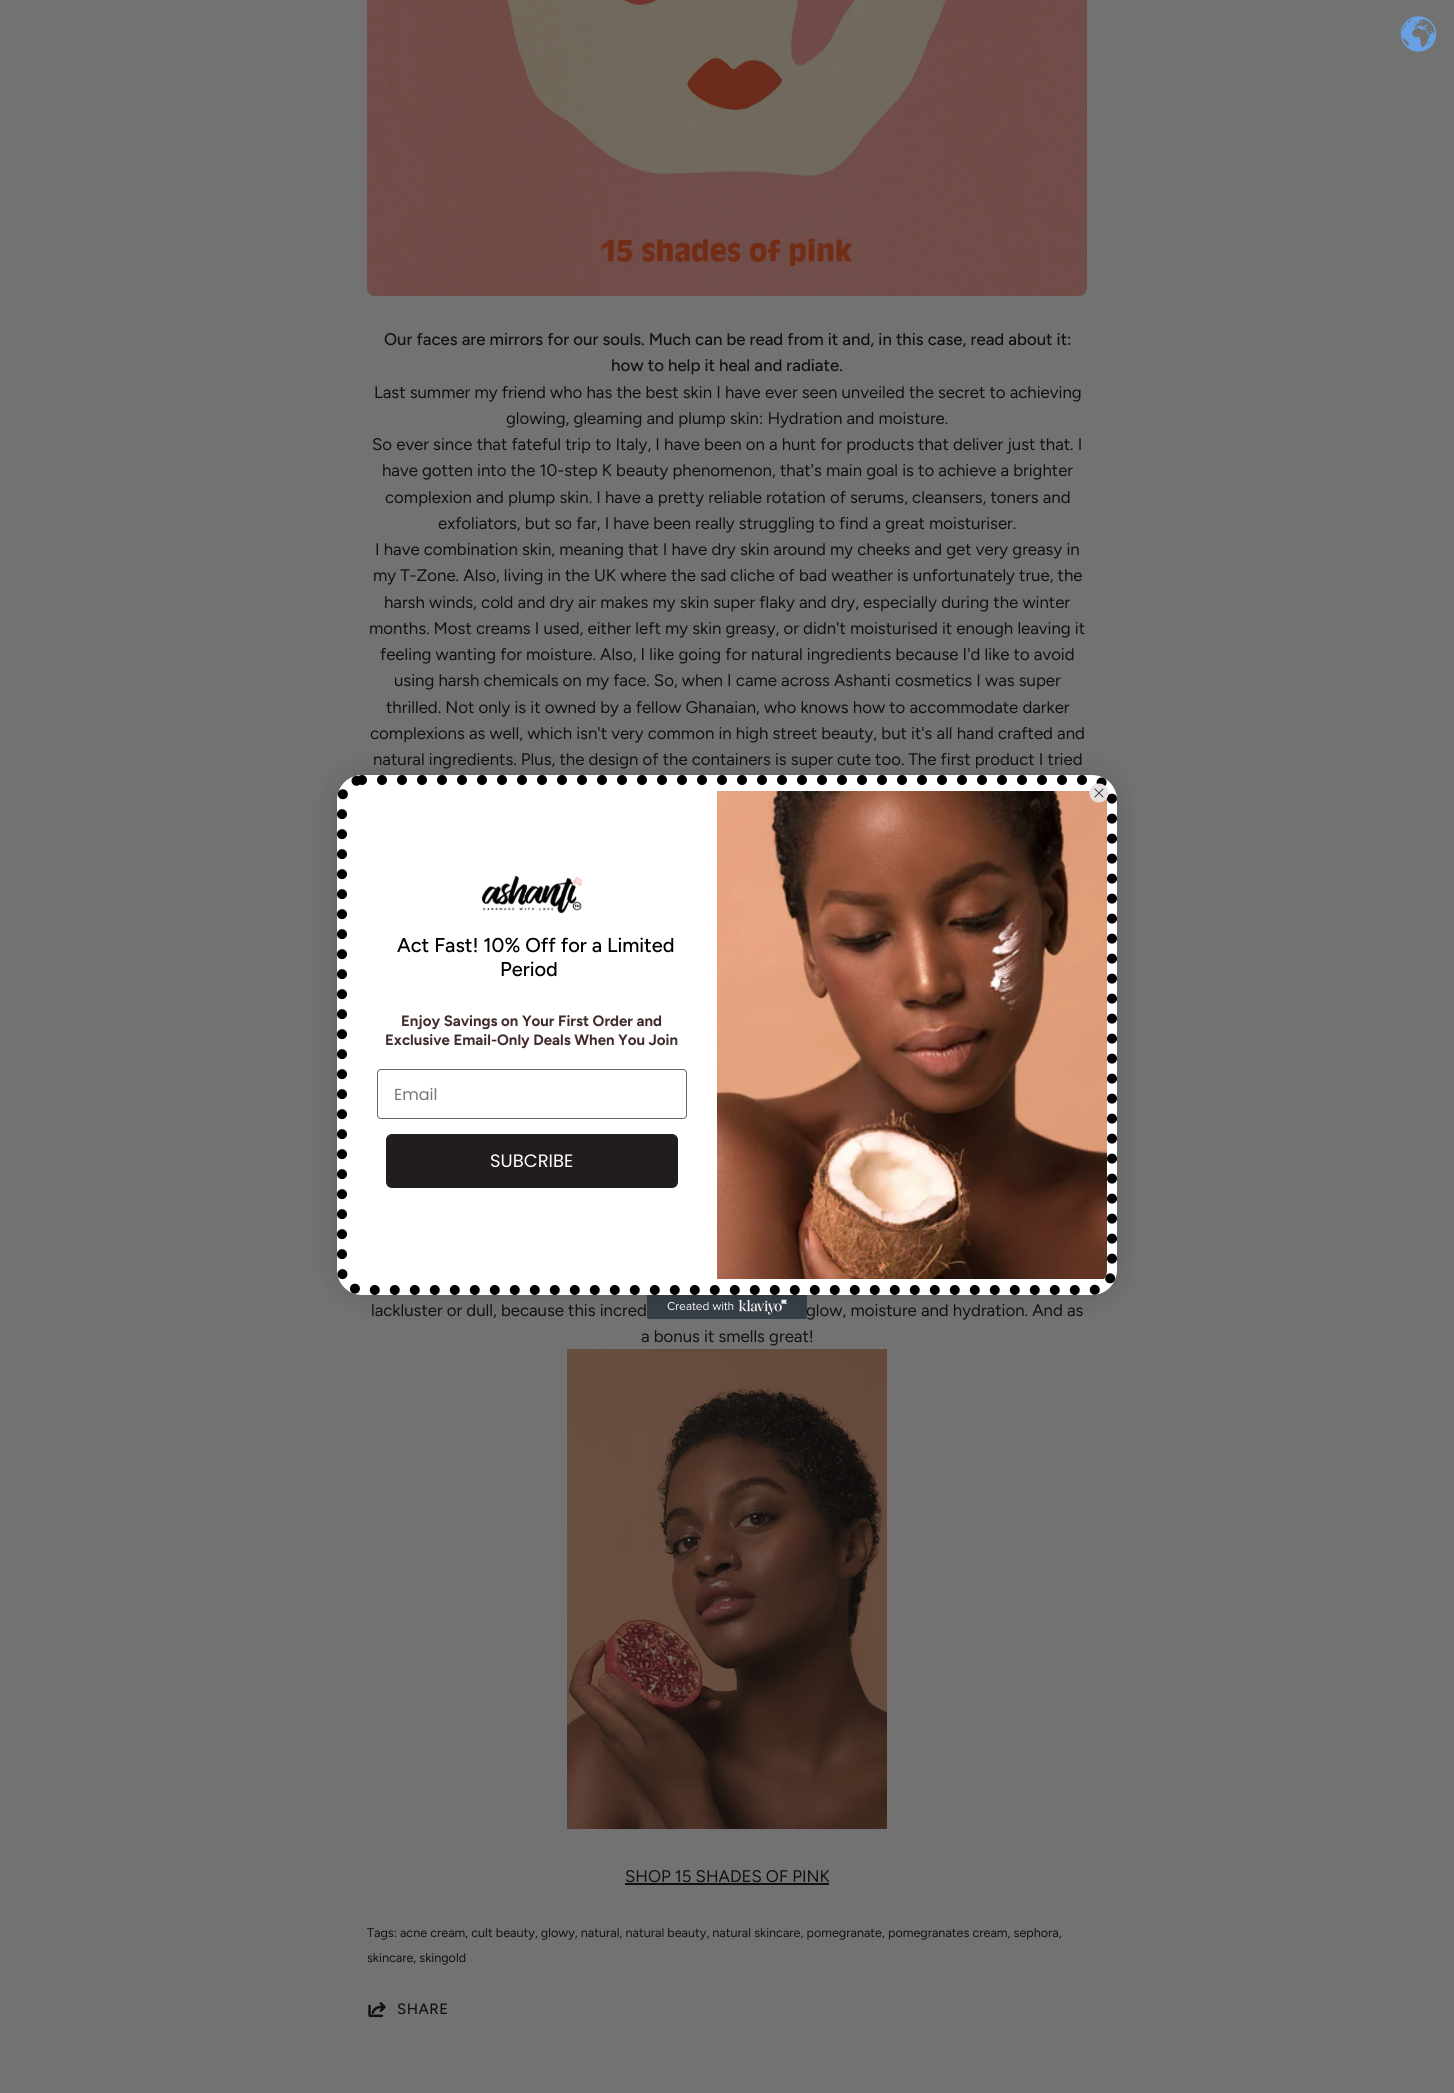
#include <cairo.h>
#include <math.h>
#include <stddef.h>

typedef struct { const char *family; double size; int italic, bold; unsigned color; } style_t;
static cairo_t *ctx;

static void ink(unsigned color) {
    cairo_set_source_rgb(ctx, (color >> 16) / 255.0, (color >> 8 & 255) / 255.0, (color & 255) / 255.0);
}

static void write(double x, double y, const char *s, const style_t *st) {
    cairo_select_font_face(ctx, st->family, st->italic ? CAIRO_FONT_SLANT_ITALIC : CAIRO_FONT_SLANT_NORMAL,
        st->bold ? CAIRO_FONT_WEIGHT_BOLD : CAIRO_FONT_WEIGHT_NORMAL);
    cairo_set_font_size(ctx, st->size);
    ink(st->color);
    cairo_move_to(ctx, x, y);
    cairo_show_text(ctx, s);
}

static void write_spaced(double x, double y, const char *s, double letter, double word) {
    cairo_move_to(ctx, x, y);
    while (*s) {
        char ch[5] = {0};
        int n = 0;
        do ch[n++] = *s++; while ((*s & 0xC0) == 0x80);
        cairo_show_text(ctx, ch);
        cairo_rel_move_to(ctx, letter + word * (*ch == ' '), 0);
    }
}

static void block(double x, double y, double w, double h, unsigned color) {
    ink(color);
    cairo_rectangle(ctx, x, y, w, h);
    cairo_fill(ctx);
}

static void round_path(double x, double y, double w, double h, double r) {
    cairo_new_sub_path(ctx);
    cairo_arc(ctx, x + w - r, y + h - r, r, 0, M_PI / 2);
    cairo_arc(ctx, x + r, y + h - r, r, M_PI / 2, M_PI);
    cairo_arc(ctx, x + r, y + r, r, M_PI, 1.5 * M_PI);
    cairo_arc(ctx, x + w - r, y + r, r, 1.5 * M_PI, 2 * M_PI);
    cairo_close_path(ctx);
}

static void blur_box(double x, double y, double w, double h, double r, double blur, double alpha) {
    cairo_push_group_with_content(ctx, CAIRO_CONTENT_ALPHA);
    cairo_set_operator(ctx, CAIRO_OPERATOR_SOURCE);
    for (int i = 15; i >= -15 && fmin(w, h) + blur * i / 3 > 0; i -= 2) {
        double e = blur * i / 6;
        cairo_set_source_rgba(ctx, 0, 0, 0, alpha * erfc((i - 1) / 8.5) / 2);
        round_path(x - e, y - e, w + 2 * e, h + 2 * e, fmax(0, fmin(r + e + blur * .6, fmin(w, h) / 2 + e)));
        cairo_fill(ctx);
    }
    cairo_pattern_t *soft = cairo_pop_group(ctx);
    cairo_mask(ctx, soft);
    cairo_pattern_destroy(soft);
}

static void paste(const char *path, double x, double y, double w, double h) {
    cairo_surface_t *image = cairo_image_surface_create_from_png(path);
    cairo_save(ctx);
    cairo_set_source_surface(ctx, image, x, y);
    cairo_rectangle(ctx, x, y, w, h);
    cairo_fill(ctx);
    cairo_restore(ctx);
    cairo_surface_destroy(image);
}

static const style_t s1 = {"Figtree Medium", 16.8, 0, 0, 0x111111};
static const style_t s2 = {"Figtree", 16.8, 0, 0, 0x111111};
static const style_t s3 = {"Figtree", 12.6, 0, 0, 0x111111};
static const style_t s4 = {"Figtree Medium", 20, 0, 0, 0x000000};
static const style_t s5 = {"Figtree", 15, 0, 1, 0x422c2c};
static const style_t s6 = {"Poppins", 16, 0, 0, 0x767676};
static const style_t s7 = {"Poppins", 18, 0, 0, 0xffffff};

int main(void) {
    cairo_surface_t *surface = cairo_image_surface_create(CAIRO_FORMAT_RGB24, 1454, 2093);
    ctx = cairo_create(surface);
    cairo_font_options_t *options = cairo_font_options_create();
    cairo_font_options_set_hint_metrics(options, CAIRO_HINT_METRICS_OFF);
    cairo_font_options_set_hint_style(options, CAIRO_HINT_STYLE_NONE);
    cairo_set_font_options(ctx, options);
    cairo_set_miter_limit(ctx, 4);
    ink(0x727272);
    cairo_paint(ctx);
    paste("pic1.png", 1400, 16, 37, 36);
    paste("pic2.png", 367, 0, 720, 296);
    write(384, 345, "Our faces are mirrors for our souls. Much can be read from it and, in this case, read about it:", &s1);
    write(611, 371, "how to help it heal and radiate.", &s1);
    write(374, 398, "Last summer my friend who has the best skin I have ever seen unveiled the secret to achieving", &s2);
    write(506, 424, "glowing, gleaming and plump skin: Hydration and moisture.", &s2);
    write(372, 450, "So ever since that fateful trip to Italy, I have been on a hunt for products that deliver just that. I", &s2);
    write(382, 476, "have gotten into the 10-step K beauty phenomenon, that's main goal is to achieve a brighter", &s2);
    write(385, 503, "complexion and plump skin. I have a pretty reliable rotation of serums, cleansers, toners and", &s2);
    write(438, 529, "exfoliators, but so far, I have been really struggling to find a great moisturiser.", &s2);
    write(375, 555, "I have combination skin, meaning that I have dry skin around my cheeks and get very greasy in", &s2);
    write(373, 581, "my T-Zone. Also, living in the UK where the sad cliche of bad weather is unfortunately true, the", &s2);
    write(384, 608, "harsh winds, cold and dry air makes my skin super flaky and dry, especially during the winter", &s2);
    write(369, 634, "months. Most creams I used, either left my skin greasy, or didn't moisturised it enough leaving it", &s2);
    write(380, 660, "feeling wanting for moisture. Also, I like going for natural ingredients because I'd like to avoid", &s2);
    write(394, 686, "using harsh chemicals on my face. So, when I came across Ashanti cosmetics I was super", &s2);
    write(386, 713, "thrilled. Not only is it owned by a fellow Ghanaian, who knows how to accommodate darker", &s2);
    write(370, 739, "complexions as well, which isn't very common in high street beauty, but it's all hand crafted and", &s2);
    write(373, 765, "natural ingredients. Plus, the design of the containers is super cute too. The first product I tried", &s2);
    write(371, 1316, "lackluster or dull, because this incred", &s2);
    write(806, 1316, "glow, moisture and hydration. And as", &s2);
    write(641, 1342, "a bonus it smells great!", &s2);
    paste("pic3.png", 567, 1349, 320, 480);
    write(625, 1882, "SHOP 15 SHADES OF PINK", &s2);
    block(625, 1883, 204, 2, 0x111111);
    write(367, 1937, "Tags: acne cream, cult beauty, glowy, natural, natural beauty, natural skincare, pomegranate, pomegranates cream, sephora,", &s3);
    write(367, 1962, "skincare, skingold", &s3);
    paste("pic4.png", 368, 2002, 18, 16);
    cairo_select_font_face(ctx, "Figtree Medium", CAIRO_FONT_SLANT_NORMAL, CAIRO_FONT_WEIGHT_NORMAL);
    cairo_set_font_size(ctx, 15);
    write_spaced(397, 2014, "SHARE", 0.5, 0);
    paste("pic7.png", 647, 1295, 160, 24);
    ink(0x000000);
    blur_box(337, 775, 780, 520, 25, 15, 0.15);
    ink(0xffffff);
    round_path(337, 775, 780, 520, 25);
    cairo_fill(ctx);
    cairo_new_path(ctx);
    cairo_move_to(ctx, 362, 780);
    cairo_line_to(ctx, 1092, 780);
    cairo_curve_to(ctx, 1103, 780, 1112, 789, 1112, 800);
    cairo_line_to(ctx, 1112, 1270);
    cairo_curve_to(ctx, 1112, 1281, 1103, 1290, 1092, 1290);
    cairo_line_to(ctx, 362, 1290);
    cairo_curve_to(ctx, 351, 1290, 342, 1281, 342, 1270);
    cairo_line_to(ctx, 342, 800);
    cairo_curve_to(ctx, 342, 789, 351, 780, 362, 780);
    cairo_close_path(ctx);
    ink(0x000000);
    cairo_set_line_width(ctx, 10);
    cairo_set_line_cap(ctx, CAIRO_LINE_CAP_ROUND);
    cairo_set_dash(ctx, (double[]){0, 20}, 2, 0);
    cairo_stroke(ctx);
    paste("pic6.png", 717, 791, 390, 488);
    ink(0xe9e1e1);
    cairo_arc(ctx, 1099, 793, 9.5, 0, 2 * M_PI);
    cairo_fill(ctx);
    cairo_new_path(ctx);
    cairo_move_to(ctx, 1095, 789);
    cairo_line_to(ctx, 1103, 797);
    cairo_move_to(ctx, 1095, 797);
    cairo_line_to(ctx, 1103, 789);
    cairo_close_path(ctx);
    ink(0x373f47);
    cairo_set_line_width(ctx, 1);
    cairo_set_line_join(ctx, CAIRO_LINE_JOIN_ROUND);
    cairo_set_dash(ctx, NULL, 0, 0);
    cairo_stroke(ctx);
    paste("pic5.png", 482, 875, 100, 39);
    write(397, 952, "Act Fast! 10% Off for a Limited", &s4);
    write(500, 976, "Period", &s4);
    write(401, 1026, "Enjoy Savings on Your First Order and", &s5);
    write(385, 1045, "Exclusive Email-Only Deals When You Join", &s5);
    round_path(377.5, 1069.5, 309, 49, 3.5);
    ink(0x606a72);
    cairo_set_line_cap(ctx, CAIRO_LINE_CAP_BUTT);
    cairo_set_line_join(ctx, CAIRO_LINE_JOIN_MITER);
    cairo_stroke(ctx);
    write(394, 1100, "Email", &s6);
    ink(0x211d1c);
    round_path(386, 1134, 292, 54, 6);
    cairo_fill(ctx);
    write(490, 1167, "SUBCRIBE", &s7);
    cairo_surface_write_to_png(surface, "screenshot.png");
    cairo_font_options_destroy(options);
    cairo_destroy(ctx);
    cairo_surface_destroy(surface);
    return 0;
}
